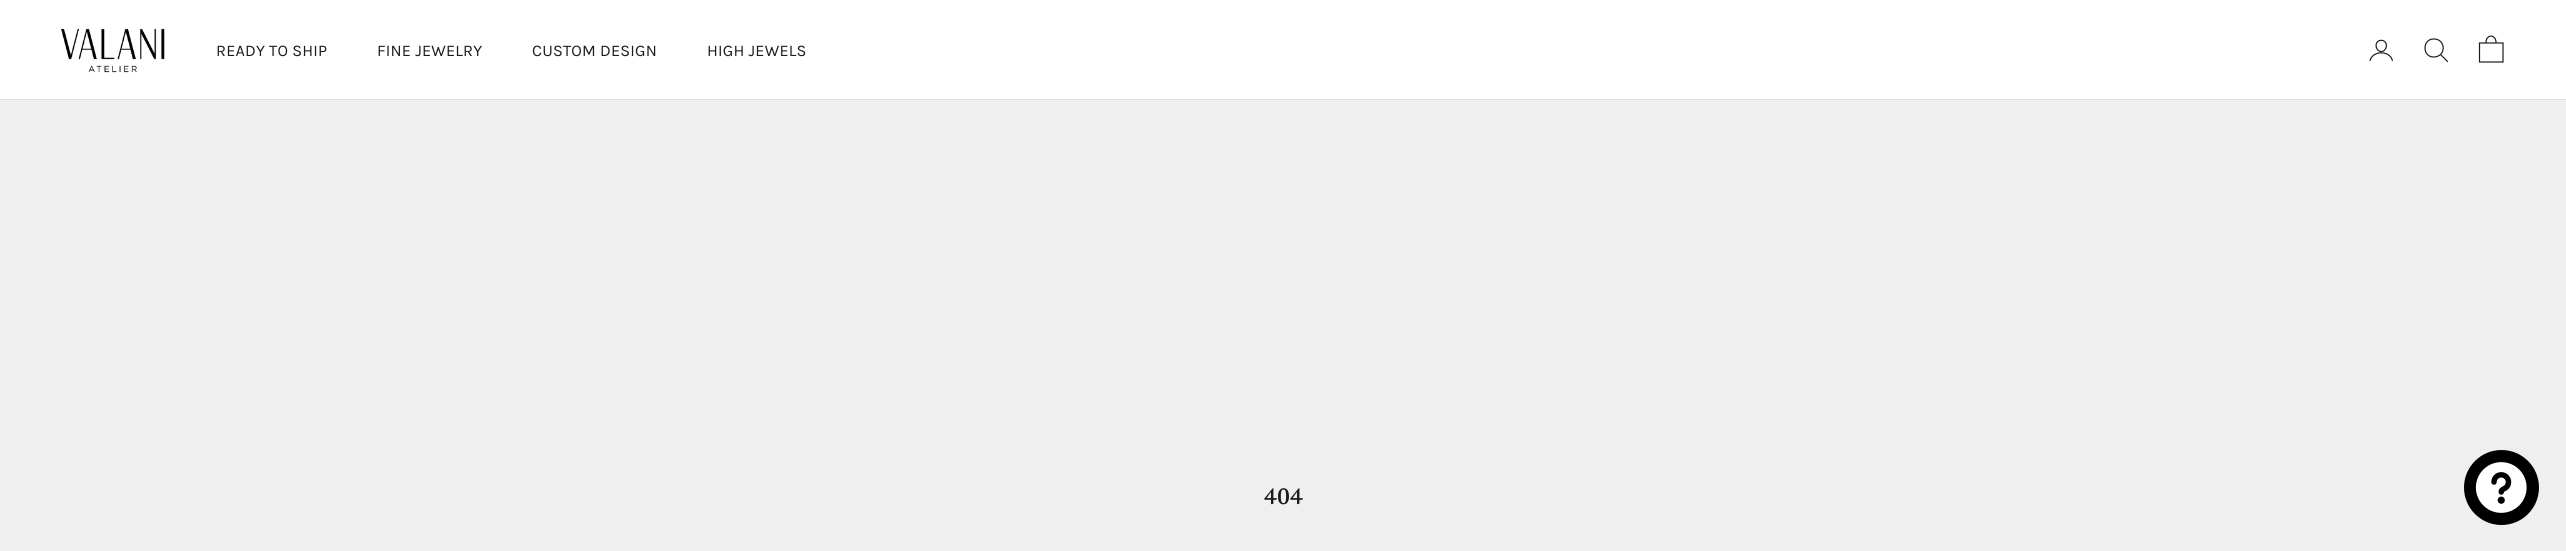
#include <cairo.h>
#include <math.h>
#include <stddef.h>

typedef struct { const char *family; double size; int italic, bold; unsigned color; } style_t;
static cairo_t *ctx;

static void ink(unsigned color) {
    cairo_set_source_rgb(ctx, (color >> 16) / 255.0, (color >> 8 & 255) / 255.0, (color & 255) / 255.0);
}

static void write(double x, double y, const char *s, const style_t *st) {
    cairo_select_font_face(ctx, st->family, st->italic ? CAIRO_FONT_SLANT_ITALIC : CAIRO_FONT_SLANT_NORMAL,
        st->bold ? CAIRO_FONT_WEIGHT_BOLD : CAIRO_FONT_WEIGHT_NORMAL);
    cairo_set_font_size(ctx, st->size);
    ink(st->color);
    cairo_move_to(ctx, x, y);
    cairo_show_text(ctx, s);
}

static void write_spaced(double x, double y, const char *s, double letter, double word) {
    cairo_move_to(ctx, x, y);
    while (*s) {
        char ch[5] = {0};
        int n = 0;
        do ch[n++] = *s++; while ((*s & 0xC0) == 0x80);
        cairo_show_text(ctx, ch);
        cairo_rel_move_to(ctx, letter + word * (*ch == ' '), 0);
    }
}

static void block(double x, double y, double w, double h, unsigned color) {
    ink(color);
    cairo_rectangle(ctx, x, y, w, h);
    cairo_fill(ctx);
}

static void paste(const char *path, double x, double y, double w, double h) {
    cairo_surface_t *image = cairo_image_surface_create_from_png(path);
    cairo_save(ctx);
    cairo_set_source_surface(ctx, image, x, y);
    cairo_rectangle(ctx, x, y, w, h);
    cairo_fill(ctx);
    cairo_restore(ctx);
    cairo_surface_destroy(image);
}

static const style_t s1 = {"Neuton", 27, 0, 0, 0x1c1c1c};

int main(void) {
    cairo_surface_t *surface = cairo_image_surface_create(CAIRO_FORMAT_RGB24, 2566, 551);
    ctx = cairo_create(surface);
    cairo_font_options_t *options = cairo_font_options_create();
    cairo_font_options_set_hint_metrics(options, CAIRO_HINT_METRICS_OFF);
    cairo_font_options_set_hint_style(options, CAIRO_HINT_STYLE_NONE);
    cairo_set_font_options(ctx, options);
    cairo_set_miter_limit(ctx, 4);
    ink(0xefefef);
    cairo_paint(ctx);
    block(0, 0, 2566, 99, 0xffffff);
    block(0, 99, 2566, 1, 0xdddddd);
    paste("pic1.png", 61, 28, 104, 45);
    cairo_select_font_face(ctx, "Karla", CAIRO_FONT_SLANT_NORMAL, CAIRO_FONT_WEIGHT_NORMAL);
    cairo_set_font_size(ctx, 16.25);
    ink(0x1c1c1c);
    write_spaced(216, 56, "READY TO SHIP", 0.2, 0);
    write_spaced(377, 56, "FINE JEWELRY", 0.2, 0);
    write_spaced(532, 56, "CUSTOM DESIGN", 0.2, 0);
    write_spaced(707, 56, "HIGH JEWELS", 0.2, 0);
    paste("pic2.png", 2369, 39, 24, 22);
    cairo_new_path(ctx);
    cairo_move_to(ctx, 2434, 39);
    cairo_curve_to(ctx, 2422, 38.5, 2422, 57.5, 2434, 57);
    cairo_curve_to(ctx, 2446.5, 56.5, 2446, 39, 2434, 39);
    cairo_close_path(ctx);
    cairo_set_line_width(ctx, 1.2);
    cairo_stroke(ctx);
    cairo_new_path(ctx);
    cairo_move_to(ctx, 2441, 55);
    cairo_line_to(ctx, 2447.5, 61.5);
    cairo_set_line_cap(ctx, CAIRO_LINE_CAP_ROUND);
    cairo_stroke(ctx);
    cairo_new_path(ctx);
    cairo_move_to(ctx, 2503, 62);
    cairo_line_to(ctx, 2503, 43);
    cairo_line_to(ctx, 2479.5, 43);
    cairo_line_to(ctx, 2479.5, 62);
    cairo_close_path(ctx);
    cairo_move_to(ctx, 2486, 42.5);
    cairo_curve_to(ctx, 2486, 34, 2496, 34, 2496, 42.5);
    cairo_set_line_cap(ctx, CAIRO_LINE_CAP_BUTT);
    cairo_stroke(ctx);
    write(1264, 504, "404", &s1);
    ink(0x000000);
    cairo_new_path(ctx);
    cairo_arc(ctx, 2501.5, 487.5, 37.5, 0, 2 * M_PI);
    cairo_fill(ctx);
    paste("pic3.png", 2475, 462, 52, 51);
    cairo_surface_write_to_png(surface, "screenshot.png");
    cairo_font_options_destroy(options);
    cairo_destroy(ctx);
    cairo_surface_destroy(surface);
    return 0;
}
